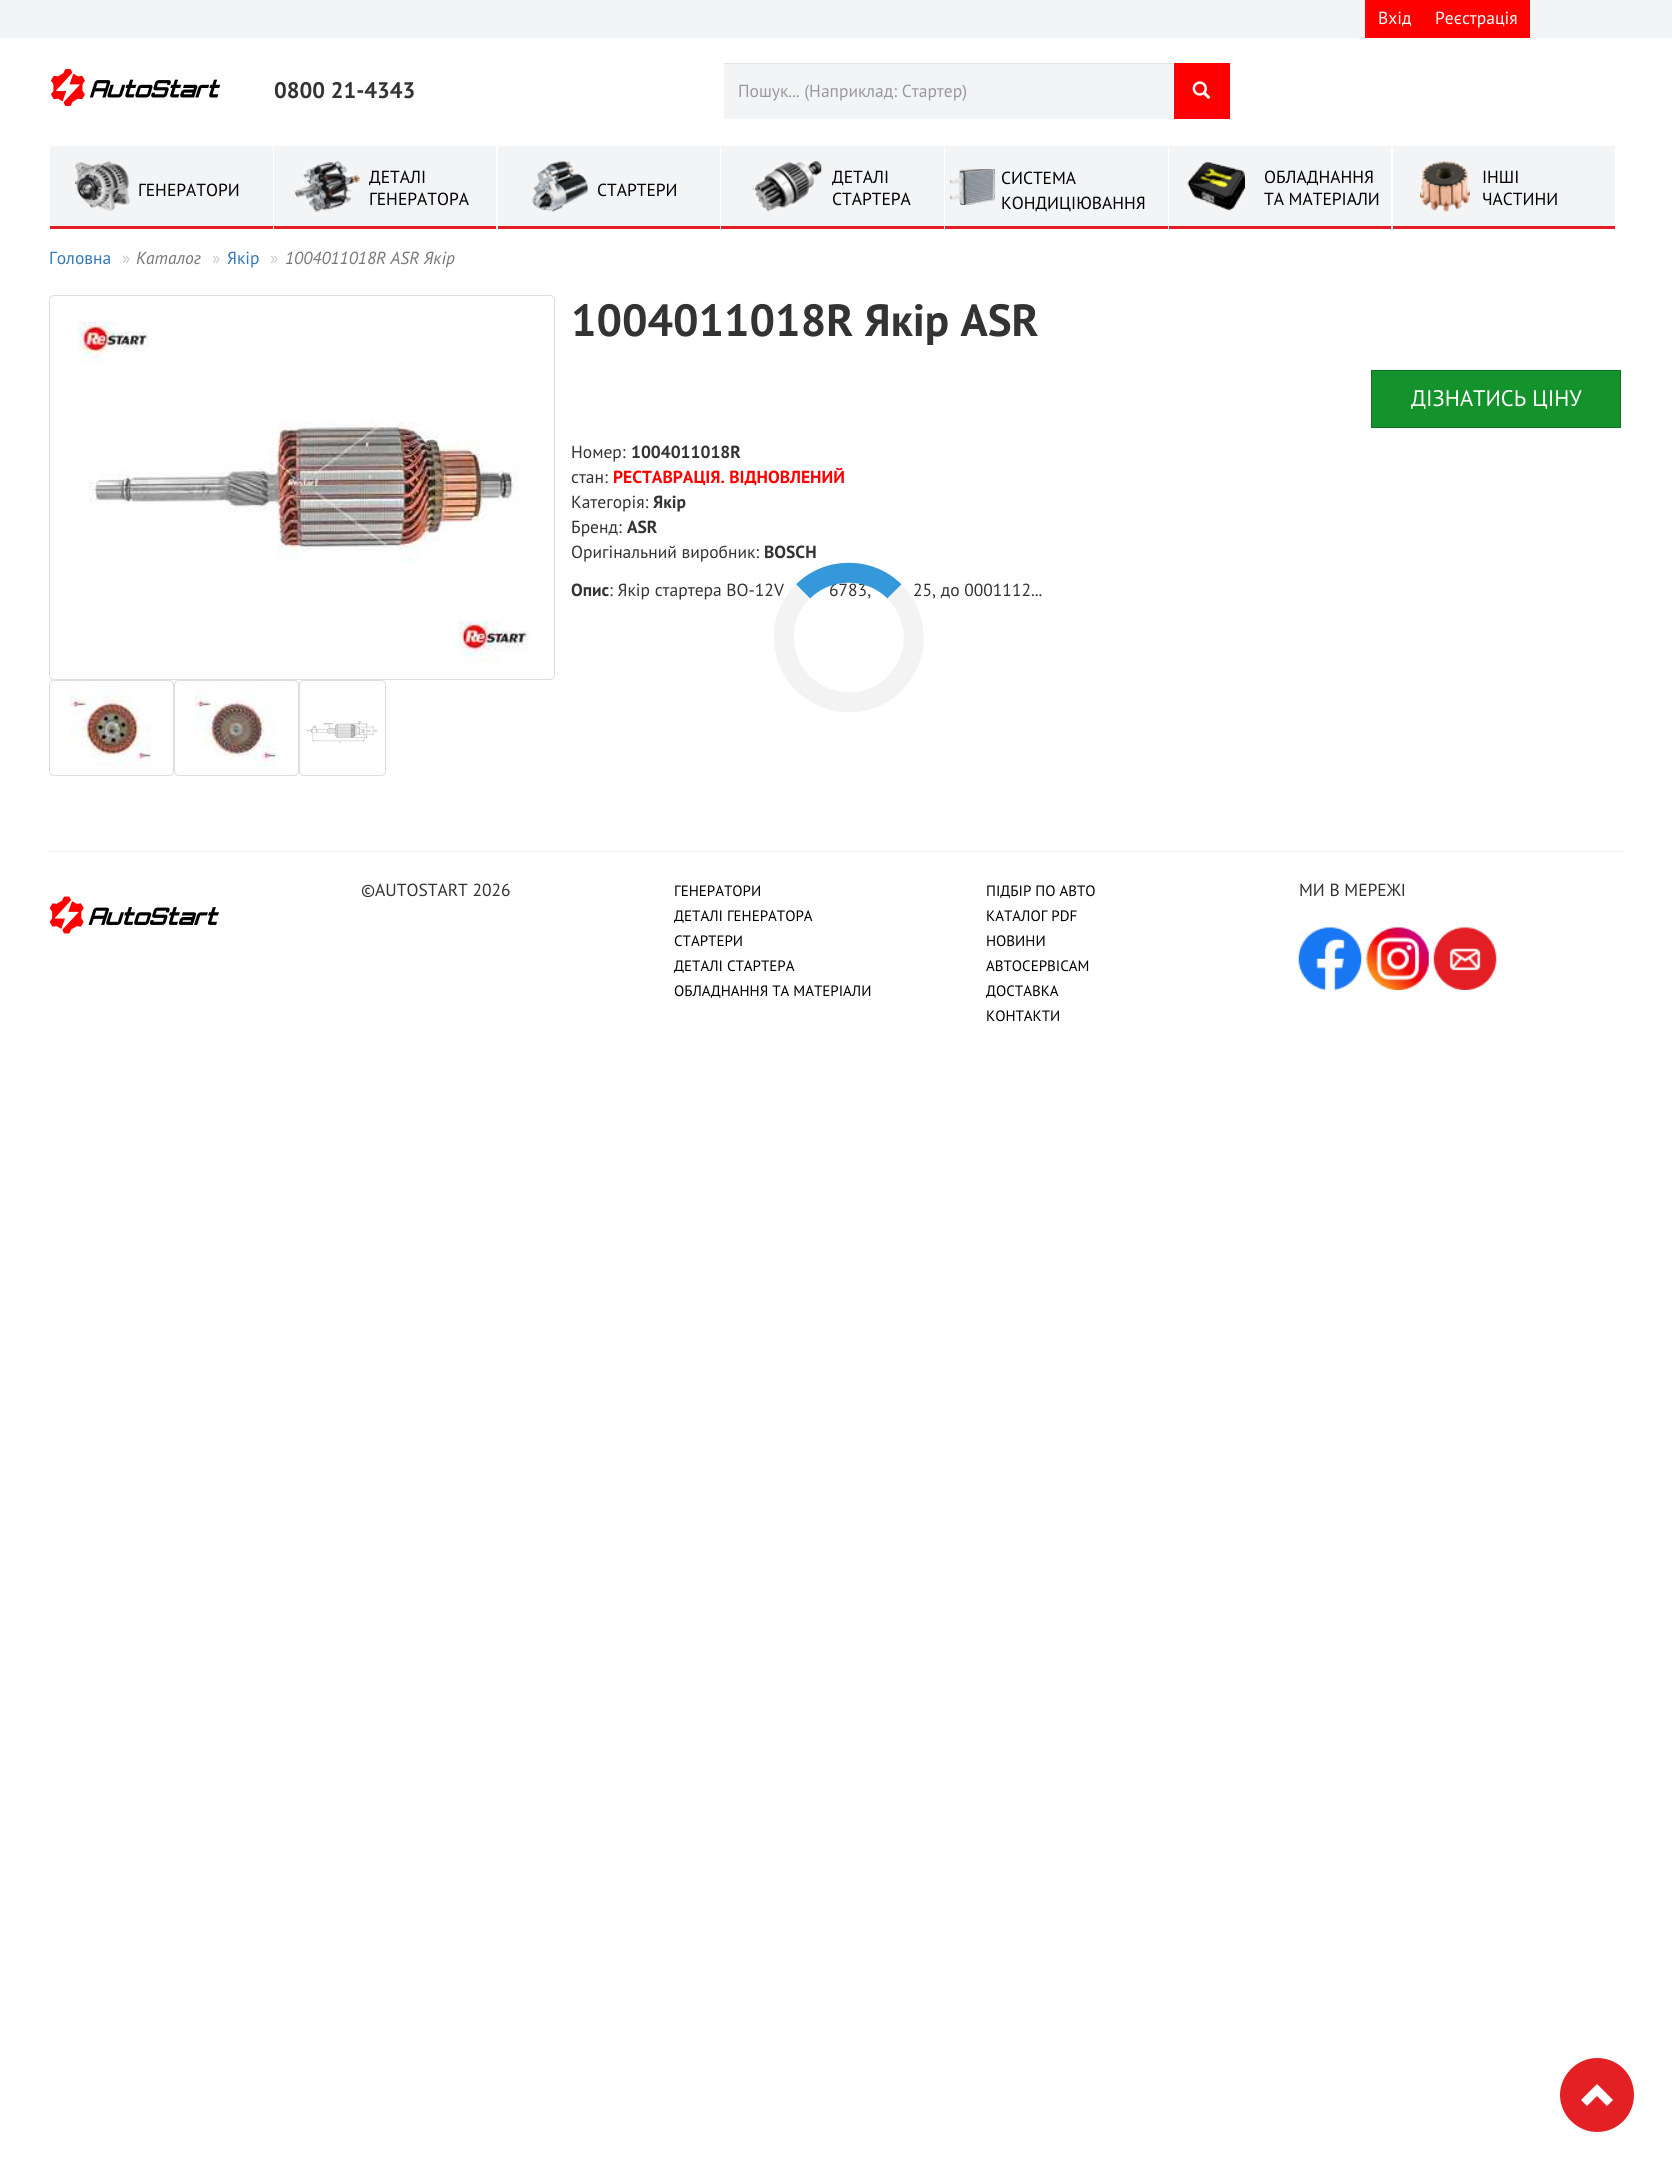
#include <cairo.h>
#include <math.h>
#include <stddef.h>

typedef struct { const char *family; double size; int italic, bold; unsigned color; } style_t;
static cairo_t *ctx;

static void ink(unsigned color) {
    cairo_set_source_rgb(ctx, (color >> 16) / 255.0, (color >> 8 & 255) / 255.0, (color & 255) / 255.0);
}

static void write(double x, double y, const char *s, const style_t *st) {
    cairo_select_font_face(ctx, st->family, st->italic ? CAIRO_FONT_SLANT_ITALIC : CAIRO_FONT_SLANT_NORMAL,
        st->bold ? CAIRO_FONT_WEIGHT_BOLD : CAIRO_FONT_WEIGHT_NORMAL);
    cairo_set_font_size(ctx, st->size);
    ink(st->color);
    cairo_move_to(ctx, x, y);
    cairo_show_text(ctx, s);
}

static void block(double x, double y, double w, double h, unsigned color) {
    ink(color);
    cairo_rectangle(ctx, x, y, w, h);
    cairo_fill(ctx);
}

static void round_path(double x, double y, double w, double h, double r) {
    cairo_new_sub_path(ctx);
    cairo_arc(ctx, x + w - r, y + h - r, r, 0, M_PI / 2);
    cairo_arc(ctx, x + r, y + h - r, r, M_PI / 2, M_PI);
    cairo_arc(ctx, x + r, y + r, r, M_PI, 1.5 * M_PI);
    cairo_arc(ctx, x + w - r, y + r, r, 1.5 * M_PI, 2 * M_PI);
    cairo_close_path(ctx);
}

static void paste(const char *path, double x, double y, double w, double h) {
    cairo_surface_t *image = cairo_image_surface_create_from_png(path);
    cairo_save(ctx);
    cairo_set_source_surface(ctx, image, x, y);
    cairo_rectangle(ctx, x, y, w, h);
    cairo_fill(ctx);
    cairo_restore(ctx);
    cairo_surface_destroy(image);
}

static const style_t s1 = {"PT Sans", 17.5, 0, 0, 0xffffff};
static const style_t s2 = {"PT Sans", 22.5, 0, 1, 0x333333};
static const style_t s3 = {"PT Sans", 17.5, 0, 0, 0x999999};
static const style_t s4 = {"PT Sans", 17.5, 0, 0, 0x000000};
static const style_t s5 = {"PT Sans", 17.5, 0, 0, 0x337ab7};
static const style_t s6 = {"PT Sans", 17.5, 0, 0, 0xcccccc};
static const style_t s7 = {"PT Sans", 17.5, 1, 0, 0x777777};
static const style_t s8 = {"PT Sans", 45, 0, 1, 0x333333};
static const style_t s9 = {"PT Sans", 22.5, 0, 0, 0xffffff};
static const style_t s10 = {"PT Sans", 17.5, 0, 0, 0x333333};
static const style_t s11 = {"PT Sans", 17.5, 0, 1, 0x333333};
static const style_t s12 = {"PT Sans", 17.5, 0, 1, 0xff0000};
static const style_t s13 = {"PT Sans", 15, 0, 0, 0x000000};

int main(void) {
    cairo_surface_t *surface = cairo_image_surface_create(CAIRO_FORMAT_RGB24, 1672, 2169);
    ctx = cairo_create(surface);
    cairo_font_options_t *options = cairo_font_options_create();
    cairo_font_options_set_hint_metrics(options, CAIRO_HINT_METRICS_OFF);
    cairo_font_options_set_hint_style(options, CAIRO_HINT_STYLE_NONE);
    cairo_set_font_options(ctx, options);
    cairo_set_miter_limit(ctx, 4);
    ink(0xffffff);
    cairo_paint(ctx);
    block(0, 0, 1672, 38, 0xf3f4f5);
    block(1365, 0, 165, 38, 0xff0000);
    write(1378, 24, "Вхід", &s1);
    write(1435, 24, "Реєстрація", &s1);
    paste("pic1.png", 51, 69, 170, 37);
    write(274, 98, "0800 21-4343", &s2);
    block(724, 64, 449, 55, 0xf3f4f5);
    block(724, 63, 449, 1, 0xe1e2e3);
    write(738, 97, "Пошук... (Наприклад: Стартер)", &s3);
    block(1174, 63, 56, 56, 0xff0000);
    paste("pic2.png", 1192, 81, 19, 18);
    block(50, 146, 223, 80, 0xf3f4f5);
    block(50, 226, 223, 3, 0xe31e24);
    paste("pic3.png", 75, 161, 55, 51);
    write(138, 196, "ГЕНЕРАТОРИ", &s4);
    block(274, 146, 222, 80, 0xf3f4f5);
    block(274, 226, 222, 3, 0xe31e24);
    paste("pic4.png", 295, 161, 65, 51);
    paste("pic5.png", 296, 161, 62, 51);
    write(369, 183, "ДЕТАЛІ", &s4);
    write(369, 205, "ГЕНЕРАТОРА", &s4);
    block(498, 146, 222, 80, 0xf3f4f5);
    block(498, 226, 222, 3, 0xe31e24);
    paste("pic6.png", 532, 161, 56, 51);
    write(597, 196, "СТАРТЕРИ", &s4);
    block(721, 146, 223, 80, 0xf3f4f5);
    block(721, 226, 223, 3, 0xe31e24);
    paste("pic7.png", 752, 161, 70, 51);
    write(832, 183, "ДЕТАЛІ", &s4);
    write(832, 205, "СТАРТЕРА", &s4);
    block(945, 146, 223, 80, 0xf3f4f5);
    block(945, 226, 223, 3, 0xe31e24);
    paste("pic8.png", 950, 169, 45, 36);
    write(1001, 184, "СИСТЕМА", &s4);
    write(1001, 209, "КОНДИЦІЮВАННЯ", &s4);
    block(1169, 146, 222, 80, 0xf3f4f5);
    block(1169, 226, 222, 3, 0xe31e24);
    paste("pic9.png", 1187, 161, 58, 50);
    write(1264, 183, "ОБЛАДНАННЯ", &s4);
    write(1264, 205, "ТА МАТЕРІАЛИ", &s4);
    block(1393, 146, 222, 80, 0xf3f4f5);
    block(1393, 226, 222, 3, 0xe31e24);
    paste("pic10.png", 1420, 161, 50, 51);
    write(1482, 183, "ІНШІ", &s4);
    write(1482, 205, "ЧАСТИНИ", &s4);
    write(49, 264, "Головна", &s5);
    write(122, 264, "»", &s6);
    write(136, 264, "Каталог", &s7);
    write(212, 264, "»", &s6);
    write(227, 264, "Якір", &s5);
    write(270, 264, "»", &s6);
    write(285, 264, "1004011018R ASR Якір", &s7);
    round_path(49.5, 295.5, 505, 384, 4.5);
    ink(0xdddddd);
    cairo_set_line_width(ctx, 1);
    cairo_stroke(ctx);
    paste("pic11.png", 77, 320, 452, 342);
    round_path(49.5, 680.5, 124, 95, 4.5);
    cairo_stroke(ctx);
    paste("pic12.png", 70, 686, 82, 81);
    round_path(174.5, 680.5, 124, 95, 4.5);
    cairo_stroke(ctx);
    paste("pic13.png", 195, 686, 82, 81);
    round_path(299.5, 680.5, 86, 95, 4.5);
    cairo_stroke(ctx);
    paste("pic14.png", 306, 721, 72, 22);
    write(571, 336, "1004011018R Якір ASR", &s8);
    ink(0x14932c);
    cairo_rectangle(ctx, 1371.5, 370.5, 249, 57);
    cairo_fill_preserve(ctx);
    ink(0x116f23);
    cairo_stroke(ctx);
    write(1411, 406, "ДІЗНАТИСЬ ЦІНУ", &s9);
    write(571, 458, "Номер:", &s10);
    write(631, 458, "1004011018R", &s11);
    write(571, 483, "стан:", &s10);
    write(613, 483, "РЕСТАВРАЦІЯ. ВІДНОВЛЕНИЙ", &s12);
    write(571, 508, "Категорія:", &s10);
    write(653, 508, "Якір", &s11);
    write(571, 533, "Бренд:", &s10);
    write(627, 533, "ASR", &s11);
    write(571, 558, "Оригінальний виробник:", &s10);
    write(764, 558, "BOSCH", &s11);
    write(571, 596, "Опис", &s11);
    write(609, 596, ": Якiр стартера BO-12V", &s10);
    write(829, 596, "6783,", &s10);
    write(913, 596, "25, до 0001112...", &s10);
    cairo_new_path(ctx);
    cairo_move_to(ctx, 803, 591.5);
    cairo_curve_to(ctx, 828, 566.5, 869.5, 566.5, 894.5, 591.5);
    ink(0x3498db);
    cairo_set_line_width(ctx, 20);
    cairo_stroke(ctx);
    cairo_new_path(ctx);
    cairo_move_to(ctx, 894.5, 591.5);
    cairo_curve_to(ctx, 910, 607, 916.5, 629, 912.5, 650);
    cairo_curve_to(ctx, 910, 663, 903.5, 674.5, 894.5, 683.5);
    cairo_curve_to(ctx, 854, 724, 784, 695, 784, 637.5);
    cairo_curve_to(ctx, 783.5, 620.5, 790.5, 603.5, 803, 591.5);
    ink(0xf3f3f3);
    cairo_stroke(ctx);
    block(49, 851, 1575, 1, 0xeeeeee);
    paste("pic15.png", 49, 896, 170, 38);
    write(361, 896, "©AUTOSTART 2026", &s10);
    write(674, 896, "ГЕНЕРАТОРИ", &s13);
    write(674, 921, "ДЕТАЛІ ГЕНЕРАТОРА", &s13);
    write(674, 946, "СТАРТЕРИ", &s13);
    write(674, 971, "ДЕТАЛІ СТАРТЕРА", &s13);
    write(674, 996, "ОБЛАДНАННЯ ТА МАТЕРІАЛИ", &s13);
    write(986, 896, "ПІДБІР ПО АВТО", &s13);
    write(986, 921, "КАТАЛОГ PDF", &s13);
    write(986, 946, "НОВИНИ", &s13);
    write(986, 971, "АВТОСЕРВІСАМ", &s13);
    write(986, 996, "ДОСТАВКА", &s13);
    write(986, 1021, "КОНТАКТИ", &s13);
    write(1299, 896, "МИ В МЕРЕЖІ", &s10);
    paste("pic16.png", 1298, 927, 64, 63);
    paste("pic17.png", 1366, 927, 63, 63);
    paste("pic18.png", 1433, 927, 64, 63);
    ink(0xe32125);
    cairo_set_fill_rule(ctx, CAIRO_FILL_RULE_EVEN_ODD);
    cairo_new_path(ctx);
    cairo_move_to(ctx, 1597, 2058);
    cairo_curve_to(ctx, 1577, 2058, 1560, 2075, 1560, 2095);
    cairo_curve_to(ctx, 1560, 2115, 1577, 2132, 1597, 2132);
    cairo_curve_to(ctx, 1618, 2132, 1634, 2115, 1634, 2095);
    cairo_curve_to(ctx, 1634, 2074, 1618, 2058, 1597, 2058);
    cairo_close_path(ctx);
    cairo_move_to(ctx, 1607, 2106);
    cairo_line_to(ctx, 1613, 2100);
    cairo_line_to(ctx, 1597, 2084);
    cairo_line_to(ctx, 1581, 2100);
    cairo_line_to(ctx, 1587, 2106);
    cairo_line_to(ctx, 1597, 2096);
    cairo_close_path(ctx);
    cairo_fill(ctx);
    cairo_surface_write_to_png(surface, "screenshot.png");
    cairo_font_options_destroy(options);
    cairo_destroy(ctx);
    cairo_surface_destroy(surface);
    return 0;
}
